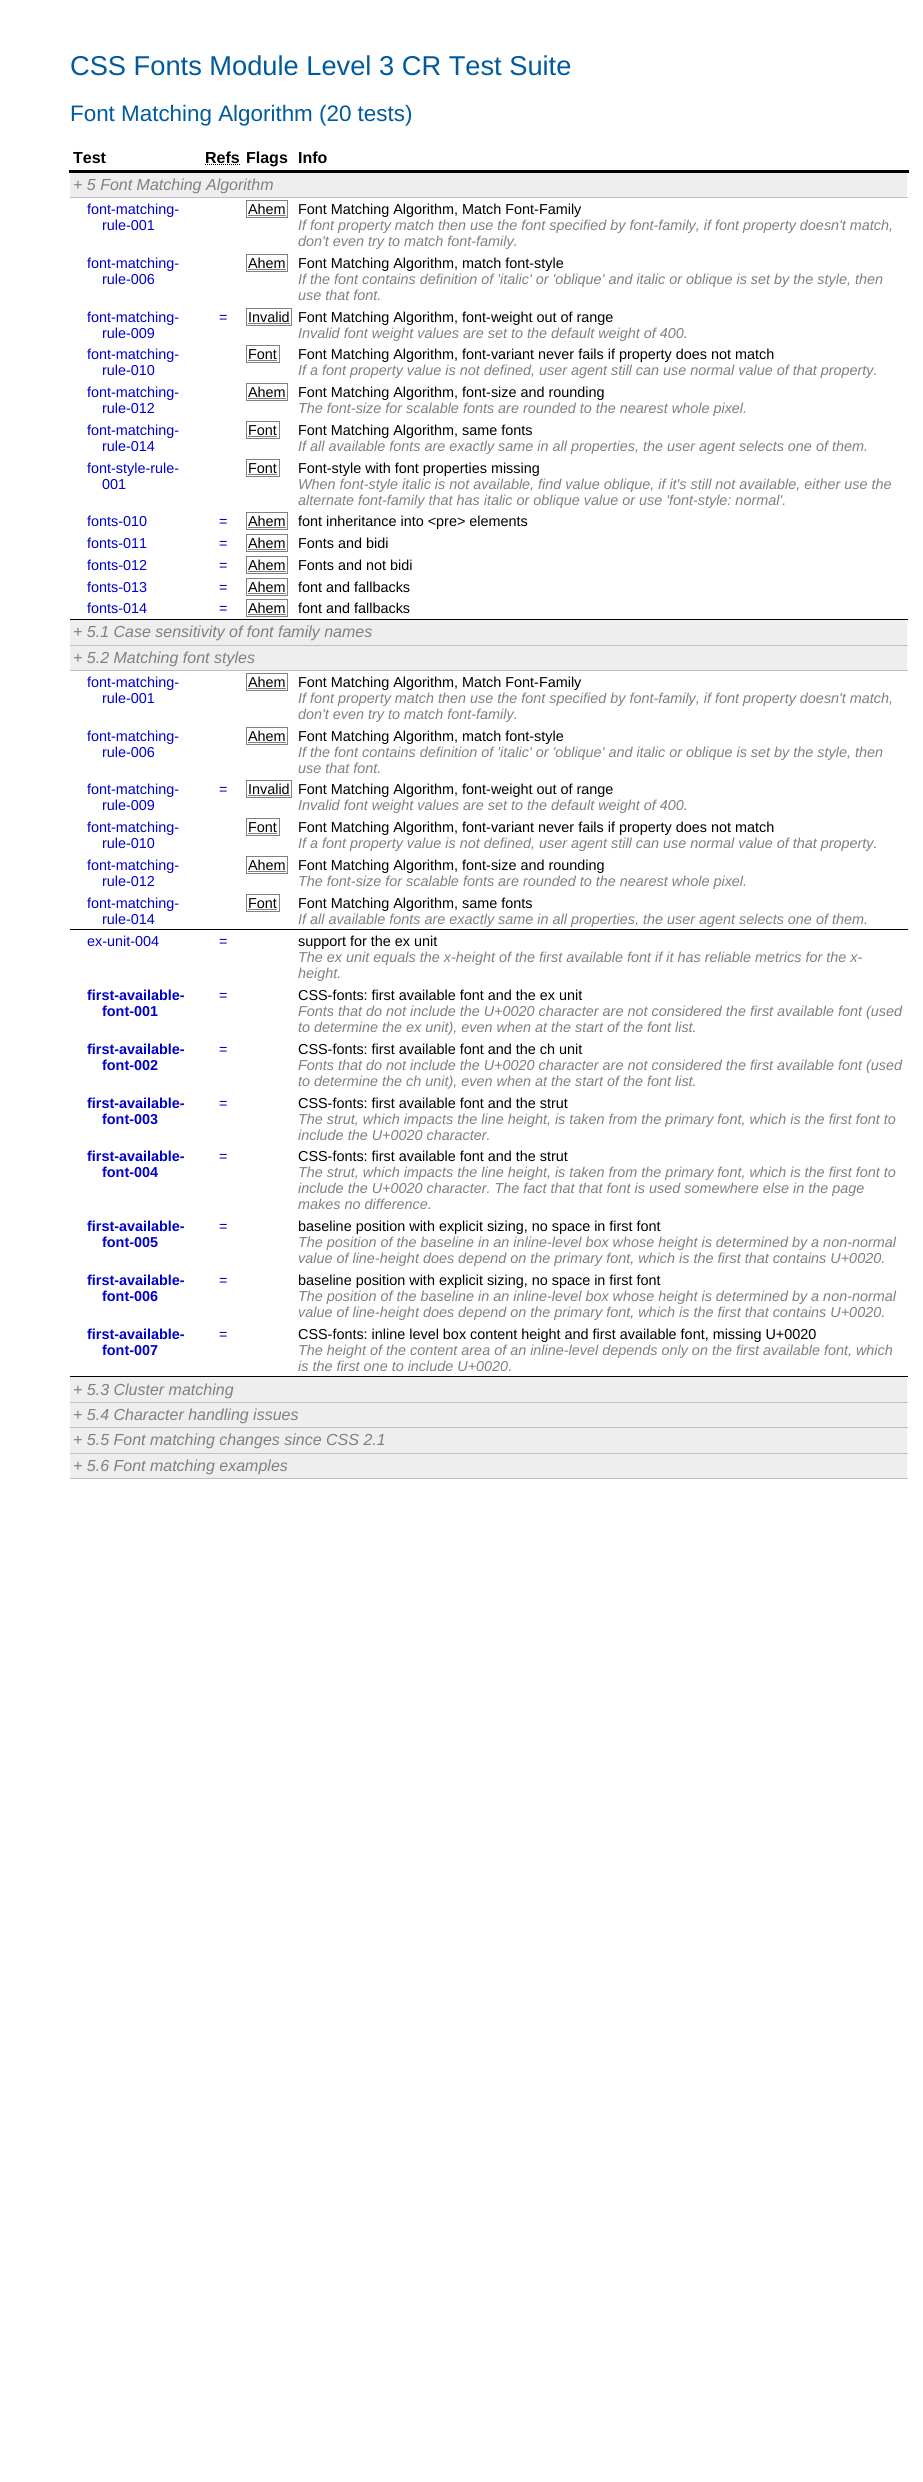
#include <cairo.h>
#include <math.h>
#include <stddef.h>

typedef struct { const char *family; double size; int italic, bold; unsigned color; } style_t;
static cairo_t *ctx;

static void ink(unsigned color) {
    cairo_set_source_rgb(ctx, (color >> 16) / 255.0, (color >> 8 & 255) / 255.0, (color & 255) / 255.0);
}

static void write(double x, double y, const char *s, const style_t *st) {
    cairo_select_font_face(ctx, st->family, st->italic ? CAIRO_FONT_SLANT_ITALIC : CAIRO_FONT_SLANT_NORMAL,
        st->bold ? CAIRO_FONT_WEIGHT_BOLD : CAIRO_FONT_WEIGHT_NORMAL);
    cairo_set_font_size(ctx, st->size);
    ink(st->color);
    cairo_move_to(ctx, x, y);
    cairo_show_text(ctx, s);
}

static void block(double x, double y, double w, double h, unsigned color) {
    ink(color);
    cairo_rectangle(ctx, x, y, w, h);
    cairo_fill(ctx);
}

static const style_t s1 = {"Liberation Sans", 27.25, 0, 0, 0x005a9c};
static const style_t s2 = {"Liberation Sans", 22.4, 0, 0, 0x005a9c};
static const style_t s3 = {"Liberation Sans", 16, 0, 1, 0x000000};
static const style_t s4 = {"Liberation Sans", 16, 1, 0, 0x808080};
static const style_t s5 = {"Liberation Sans", 14.4, 0, 0, 0x0000cc};
static const style_t s6 = {"Liberation Sans", 14.4, 0, 0, 0x000000};
static const style_t s7 = {"Liberation Sans", 14.4, 1, 0, 0x808080};
static const style_t s8 = {"Liberation Sans", 14.4, 0, 1, 0x0000cc};

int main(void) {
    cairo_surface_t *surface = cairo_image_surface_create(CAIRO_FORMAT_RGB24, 923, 2482);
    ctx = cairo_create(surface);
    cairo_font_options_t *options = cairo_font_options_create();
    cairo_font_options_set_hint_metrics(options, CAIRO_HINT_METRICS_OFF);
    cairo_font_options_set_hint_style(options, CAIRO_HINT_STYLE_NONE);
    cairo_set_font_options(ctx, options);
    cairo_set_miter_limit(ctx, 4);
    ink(0xffffff);
    cairo_paint(ctx);
    write(70, 75, "CSS Fonts Module Level 3 CR Test Suite", &s1);
    write(70, 121, "Font Matching Algorithm (20 tests)", &s2);
    block(69, 170, 840, 3, 0x000000);
    write(73, 163, "Test", &s3);
    write(205, 163, "Refs", &s3);
    cairo_new_path(ctx);
    cairo_move_to(ctx, 205, 164.5);
    cairo_line_to(ctx, 240, 164.5);
    cairo_set_line_width(ctx, 1);
    cairo_set_dash(ctx, (double[]){1, 1}, 2, 0);
    cairo_stroke(ctx);
    write(246, 163, "Flags", &s3);
    write(298, 163, "Info", &s3);
    block(70, 173, 837, 24, 0xeeeeee);
    block(70, 197, 838, 1, 0xc0c0c0);
    write(73, 190, "+ 5 Font Matching Algorithm", &s4);
    write(87, 214, "font-matching-", &s5);
    write(102, 230, "rule-001", &s5);
    cairo_rectangle(ctx, 246.5, 200.5, 41, 17);
    ink(0x808080);
    cairo_set_dash(ctx, NULL, 0, 0);
    cairo_stroke(ctx);
    write(248, 214, "Ahem", &s6);
    cairo_new_path(ctx);
    cairo_move_to(ctx, 248.5, 215.5);
    cairo_line_to(ctx, 286, 215.5);
    cairo_set_dash(ctx, (double[]){1, 1}, 2, 0);
    cairo_stroke(ctx);
    write(298, 214, "Font Matching Algorithm, Match Font-Family", &s6);
    write(298, 230, "If font property match then use the font specified by font-family, if font property doesn't match,", &s7);
    write(298, 246, "don't even try to match font-family.", &s7);
    write(87, 268, "font-matching-", &s5);
    write(102, 284, "rule-006", &s5);
    cairo_rectangle(ctx, 246.5, 254.5, 41, 17);
    ink(0x808080);
    cairo_set_dash(ctx, NULL, 0, 0);
    cairo_stroke(ctx);
    write(248, 268, "Ahem", &s6);
    cairo_new_path(ctx);
    cairo_move_to(ctx, 248.5, 269.5);
    cairo_line_to(ctx, 286, 269.5);
    cairo_set_dash(ctx, (double[]){1, 1}, 2, 0);
    cairo_stroke(ctx);
    write(298, 268, "Font Matching Algorithm, match font-style", &s6);
    write(298, 284, "If the font contains definition of 'italic' or 'oblique' and italic or oblique is set by the style, then", &s7);
    write(298, 300, "use that font.", &s7);
    write(87, 322, "font-matching-", &s5);
    write(102, 338, "rule-009", &s5);
    write(219, 322, "=", &s5);
    cairo_rectangle(ctx, 246.5, 308.5, 45, 17);
    ink(0x808080);
    cairo_set_dash(ctx, NULL, 0, 0);
    cairo_stroke(ctx);
    write(248, 322, "Invalid", &s6);
    cairo_new_path(ctx);
    cairo_move_to(ctx, 248.5, 323.5);
    cairo_line_to(ctx, 290, 323.5);
    cairo_set_dash(ctx, (double[]){1, 1}, 2, 0);
    cairo_stroke(ctx);
    write(298, 322, "Font Matching Algorithm, font-weight out of range", &s6);
    write(298, 338, "Invalid font weight values are set to the default weight of 400.", &s7);
    write(87, 359, "font-matching-", &s5);
    write(102, 375, "rule-010", &s5);
    cairo_rectangle(ctx, 246.5, 345.5, 33, 17);
    ink(0x808080);
    cairo_set_dash(ctx, NULL, 0, 0);
    cairo_stroke(ctx);
    write(248, 359, "Font", &s6);
    cairo_new_path(ctx);
    cairo_move_to(ctx, 248.5, 360.5);
    cairo_line_to(ctx, 277, 360.5);
    cairo_set_dash(ctx, (double[]){1, 1}, 2, 0);
    cairo_stroke(ctx);
    write(298, 359, "Font Matching Algorithm, font-variant never fails if property does not match", &s6);
    write(298, 375, "If a font property value is not defined, user agent still can use normal value of that property.", &s7);
    write(87, 397, "font-matching-", &s5);
    write(102, 413, "rule-012", &s5);
    cairo_rectangle(ctx, 246.5, 383.5, 41, 17);
    ink(0x808080);
    cairo_set_dash(ctx, NULL, 0, 0);
    cairo_stroke(ctx);
    write(248, 397, "Ahem", &s6);
    cairo_new_path(ctx);
    cairo_move_to(ctx, 248.5, 398.5);
    cairo_line_to(ctx, 286, 398.5);
    cairo_set_dash(ctx, (double[]){1, 1}, 2, 0);
    cairo_stroke(ctx);
    write(298, 397, "Font Matching Algorithm, font-size and rounding", &s6);
    write(298, 413, "The font-size for scalable fonts are rounded to the nearest whole pixel.", &s7);
    write(87, 435, "font-matching-", &s5);
    write(102, 451, "rule-014", &s5);
    cairo_rectangle(ctx, 246.5, 421.5, 33, 17);
    ink(0x808080);
    cairo_set_dash(ctx, NULL, 0, 0);
    cairo_stroke(ctx);
    write(248, 435, "Font", &s6);
    cairo_new_path(ctx);
    cairo_move_to(ctx, 248.5, 436.5);
    cairo_line_to(ctx, 277, 436.5);
    cairo_set_dash(ctx, (double[]){1, 1}, 2, 0);
    cairo_stroke(ctx);
    write(298, 435, "Font Matching Algorithm, same fonts", &s6);
    write(298, 451, "If all available fonts are exactly same in all properties, the user agent selects one of them.", &s7);
    write(87, 473, "font-style-rule-", &s5);
    write(102, 489, "001", &s5);
    cairo_rectangle(ctx, 246.5, 459.5, 33, 17);
    ink(0x808080);
    cairo_set_dash(ctx, NULL, 0, 0);
    cairo_stroke(ctx);
    write(248, 473, "Font", &s6);
    cairo_new_path(ctx);
    cairo_move_to(ctx, 248.5, 474.5);
    cairo_line_to(ctx, 277, 474.5);
    cairo_set_dash(ctx, (double[]){1, 1}, 2, 0);
    cairo_stroke(ctx);
    write(298, 473, "Font-style with font properties missing", &s6);
    write(298, 489, "When font-style italic is not available, find value oblique, if it's still not available, either use the", &s7);
    write(298, 505, "alternate font-family that has italic or oblique value or use 'font-style: normal'.", &s7);
    write(87, 526, "fonts-010", &s5);
    write(219, 526, "=", &s5);
    cairo_rectangle(ctx, 246.5, 512.5, 41, 17);
    ink(0x808080);
    cairo_set_dash(ctx, NULL, 0, 0);
    cairo_stroke(ctx);
    write(248, 526, "Ahem", &s6);
    cairo_new_path(ctx);
    cairo_move_to(ctx, 248.5, 527.5);
    cairo_line_to(ctx, 286, 527.5);
    cairo_set_dash(ctx, (double[]){1, 1}, 2, 0);
    cairo_stroke(ctx);
    write(298, 526, "font inheritance into <pre> elements", &s6);
    write(87, 548, "fonts-011", &s5);
    write(219, 548, "=", &s5);
    cairo_rectangle(ctx, 246.5, 534.5, 41, 17);
    ink(0x808080);
    cairo_set_dash(ctx, NULL, 0, 0);
    cairo_stroke(ctx);
    write(248, 548, "Ahem", &s6);
    cairo_new_path(ctx);
    cairo_move_to(ctx, 248.5, 549.5);
    cairo_line_to(ctx, 286, 549.5);
    cairo_set_dash(ctx, (double[]){1, 1}, 2, 0);
    cairo_stroke(ctx);
    write(298, 548, "Fonts and bidi", &s6);
    write(87, 570, "fonts-012", &s5);
    write(219, 570, "=", &s5);
    cairo_rectangle(ctx, 246.5, 556.5, 41, 17);
    ink(0x808080);
    cairo_set_dash(ctx, NULL, 0, 0);
    cairo_stroke(ctx);
    write(248, 570, "Ahem", &s6);
    cairo_new_path(ctx);
    cairo_move_to(ctx, 248.5, 571.5);
    cairo_line_to(ctx, 286, 571.5);
    cairo_set_dash(ctx, (double[]){1, 1}, 2, 0);
    cairo_stroke(ctx);
    write(298, 570, "Fonts and not bidi", &s6);
    write(87, 592, "fonts-013", &s5);
    write(219, 592, "=", &s5);
    cairo_rectangle(ctx, 246.5, 578.5, 41, 17);
    ink(0x808080);
    cairo_set_dash(ctx, NULL, 0, 0);
    cairo_stroke(ctx);
    write(248, 592, "Ahem", &s6);
    cairo_new_path(ctx);
    cairo_move_to(ctx, 248.5, 593.5);
    cairo_line_to(ctx, 286, 593.5);
    cairo_set_dash(ctx, (double[]){1, 1}, 2, 0);
    cairo_stroke(ctx);
    write(298, 592, "font and fallbacks", &s6);
    write(87, 613, "fonts-014", &s5);
    write(219, 613, "=", &s5);
    cairo_rectangle(ctx, 246.5, 599.5, 41, 17);
    ink(0x808080);
    cairo_set_dash(ctx, NULL, 0, 0);
    cairo_stroke(ctx);
    write(248, 613, "Ahem", &s6);
    cairo_new_path(ctx);
    cairo_move_to(ctx, 248.5, 614.5);
    cairo_line_to(ctx, 286, 614.5);
    cairo_set_dash(ctx, (double[]){1, 1}, 2, 0);
    cairo_stroke(ctx);
    write(298, 613, "font and fallbacks", &s6);
    block(70, 619, 838, 1, 0x000000);
    block(70, 620, 837, 25, 0xeeeeee);
    block(70, 645, 838, 1, 0xc0c0c0);
    write(73, 637, "+ 5.1 Case sensitivity of font family names", &s4);
    block(70, 646, 837, 24, 0xeeeeee);
    block(70, 670, 838, 1, 0xc0c0c0);
    write(73, 663, "+ 5.2 Matching font styles", &s4);
    write(87, 687, "font-matching-", &s5);
    write(102, 703, "rule-001", &s5);
    cairo_rectangle(ctx, 246.5, 673.5, 41, 17);
    ink(0x808080);
    cairo_set_dash(ctx, NULL, 0, 0);
    cairo_stroke(ctx);
    write(248, 687, "Ahem", &s6);
    cairo_new_path(ctx);
    cairo_move_to(ctx, 248.5, 688.5);
    cairo_line_to(ctx, 286, 688.5);
    cairo_set_dash(ctx, (double[]){1, 1}, 2, 0);
    cairo_stroke(ctx);
    write(298, 687, "Font Matching Algorithm, Match Font-Family", &s6);
    write(298, 703, "If font property match then use the font specified by font-family, if font property doesn't match,", &s7);
    write(298, 719, "don't even try to match font-family.", &s7);
    write(87, 741, "font-matching-", &s5);
    write(102, 757, "rule-006", &s5);
    cairo_rectangle(ctx, 246.5, 727.5, 41, 17);
    ink(0x808080);
    cairo_set_dash(ctx, NULL, 0, 0);
    cairo_stroke(ctx);
    write(248, 741, "Ahem", &s6);
    cairo_new_path(ctx);
    cairo_move_to(ctx, 248.5, 742.5);
    cairo_line_to(ctx, 286, 742.5);
    cairo_set_dash(ctx, (double[]){1, 1}, 2, 0);
    cairo_stroke(ctx);
    write(298, 741, "Font Matching Algorithm, match font-style", &s6);
    write(298, 757, "If the font contains definition of 'italic' or 'oblique' and italic or oblique is set by the style, then", &s7);
    write(298, 773, "use that font.", &s7);
    write(87, 794, "font-matching-", &s5);
    write(102, 810, "rule-009", &s5);
    write(219, 794, "=", &s5);
    cairo_rectangle(ctx, 246.5, 780.5, 45, 17);
    ink(0x808080);
    cairo_set_dash(ctx, NULL, 0, 0);
    cairo_stroke(ctx);
    write(248, 794, "Invalid", &s6);
    cairo_new_path(ctx);
    cairo_move_to(ctx, 248.5, 795.5);
    cairo_line_to(ctx, 290, 795.5);
    cairo_set_dash(ctx, (double[]){1, 1}, 2, 0);
    cairo_stroke(ctx);
    write(298, 794, "Font Matching Algorithm, font-weight out of range", &s6);
    write(298, 810, "Invalid font weight values are set to the default weight of 400.", &s7);
    write(87, 832, "font-matching-", &s5);
    write(102, 848, "rule-010", &s5);
    cairo_rectangle(ctx, 246.5, 818.5, 33, 17);
    ink(0x808080);
    cairo_set_dash(ctx, NULL, 0, 0);
    cairo_stroke(ctx);
    write(248, 832, "Font", &s6);
    cairo_new_path(ctx);
    cairo_move_to(ctx, 248.5, 833.5);
    cairo_line_to(ctx, 277, 833.5);
    cairo_set_dash(ctx, (double[]){1, 1}, 2, 0);
    cairo_stroke(ctx);
    write(298, 832, "Font Matching Algorithm, font-variant never fails if property does not match", &s6);
    write(298, 848, "If a font property value is not defined, user agent still can use normal value of that property.", &s7);
    write(87, 870, "font-matching-", &s5);
    write(102, 886, "rule-012", &s5);
    cairo_rectangle(ctx, 246.5, 856.5, 41, 17);
    ink(0x808080);
    cairo_set_dash(ctx, NULL, 0, 0);
    cairo_stroke(ctx);
    write(248, 870, "Ahem", &s6);
    cairo_new_path(ctx);
    cairo_move_to(ctx, 248.5, 871.5);
    cairo_line_to(ctx, 286, 871.5);
    cairo_set_dash(ctx, (double[]){1, 1}, 2, 0);
    cairo_stroke(ctx);
    write(298, 870, "Font Matching Algorithm, font-size and rounding", &s6);
    write(298, 886, "The font-size for scalable fonts are rounded to the nearest whole pixel.", &s7);
    write(87, 908, "font-matching-", &s5);
    write(102, 924, "rule-014", &s5);
    cairo_rectangle(ctx, 246.5, 894.5, 33, 17);
    ink(0x808080);
    cairo_set_dash(ctx, NULL, 0, 0);
    cairo_stroke(ctx);
    write(248, 908, "Font", &s6);
    cairo_new_path(ctx);
    cairo_move_to(ctx, 248.5, 909.5);
    cairo_line_to(ctx, 277, 909.5);
    cairo_set_dash(ctx, (double[]){1, 1}, 2, 0);
    cairo_stroke(ctx);
    write(298, 908, "Font Matching Algorithm, same fonts", &s6);
    write(298, 924, "If all available fonts are exactly same in all properties, the user agent selects one of them.", &s7);
    block(70, 929, 838, 1, 0x000000);
    write(87, 946, "ex-unit-004", &s5);
    write(219, 946, "=", &s5);
    write(298, 946, "support for the ex unit", &s6);
    write(298, 962, "The ex unit equals the x-height of the first available font if it has reliable metrics for the x-", &s7);
    write(298, 978, "height.", &s7);
    write(87, 1000, "first-available-", &s8);
    write(102, 1016, "font-001", &s8);
    write(219, 1000, "=", &s5);
    write(298, 1000, "CSS-fonts: first available font and the ex unit", &s6);
    write(298, 1016, "Fonts that do not include the U+0020 character are not considered the first available font (used", &s7);
    write(298, 1032, "to determine the ex unit), even when at the start of the font list.", &s7);
    write(87, 1054, "first-available-", &s8);
    write(102, 1070, "font-002", &s8);
    write(219, 1054, "=", &s5);
    write(298, 1054, "CSS-fonts: first available font and the ch unit", &s6);
    write(298, 1070, "Fonts that do not include the U+0020 character are not considered the first available font (used", &s7);
    write(298, 1086, "to determine the ch unit), even when at the start of the font list.", &s7);
    write(87, 1108, "first-available-", &s8);
    write(102, 1124, "font-003", &s8);
    write(219, 1108, "=", &s5);
    write(298, 1108, "CSS-fonts: first available font and the strut", &s6);
    write(298, 1124, "The strut, which impacts the line height, is taken from the primary font, which is the first font to", &s7);
    write(298, 1140, "include the U+0020 character.", &s7);
    write(87, 1161, "first-available-", &s8);
    write(102, 1177, "font-004", &s8);
    write(219, 1161, "=", &s5);
    write(298, 1161, "CSS-fonts: first available font and the strut", &s6);
    write(298, 1177, "The strut, which impacts the line height, is taken from the primary font, which is the first font to", &s7);
    write(298, 1193, "include the U+0020 character. The fact that that font is used somewhere else in the page", &s7);
    write(298, 1209, "makes no difference.", &s7);
    write(87, 1231, "first-available-", &s8);
    write(102, 1247, "font-005", &s8);
    write(219, 1231, "=", &s5);
    write(298, 1231, "baseline position with explicit sizing, no space in first font", &s6);
    write(298, 1247, "The position of the baseline in an inline-level box whose height is determined by a non-normal", &s7);
    write(298, 1263, "value of line-height does depend on the primary font, which is the first that contains U+0020.", &s7);
    write(87, 1285, "first-available-", &s8);
    write(102, 1301, "font-006", &s8);
    write(219, 1285, "=", &s5);
    write(298, 1285, "baseline position with explicit sizing, no space in first font", &s6);
    write(298, 1301, "The position of the baseline in an inline-level box whose height is determined by a non-normal", &s7);
    write(298, 1317, "value of line-height does depend on the primary font, which is the first that contains U+0020.", &s7);
    write(87, 1339, "first-available-", &s8);
    write(102, 1355, "font-007", &s8);
    write(219, 1339, "=", &s5);
    write(298, 1339, "CSS-fonts: inline level box content height and first available font, missing U+0020", &s6);
    write(298, 1355, "The height of the content area of an inline-level depends only on the first available font, which", &s7);
    write(298, 1371, "is the first one to include U+0020.", &s7);
    block(70, 1376, 838, 1, 0x000000);
    block(70, 1377, 837, 25, 0xeeeeee);
    block(70, 1402, 838, 1, 0xc0c0c0);
    write(73, 1395, "+ 5.3 Cluster matching", &s4);
    block(70, 1403, 837, 24, 0xeeeeee);
    block(70, 1427, 838, 1, 0xc0c0c0);
    write(73, 1420, "+ 5.4 Character handling issues", &s4);
    block(70, 1428, 837, 25, 0xeeeeee);
    block(70, 1453, 838, 1, 0xc0c0c0);
    write(73, 1445, "+ 5.5 Font matching changes since CSS 2.1", &s4);
    block(70, 1454, 837, 24, 0xeeeeee);
    block(70, 1478, 838, 1, 0xc0c0c0);
    write(73, 1471, "+ 5.6 Font matching examples", &s4);
    cairo_surface_write_to_png(surface, "screenshot.png");
    cairo_font_options_destroy(options);
    cairo_destroy(ctx);
    cairo_surface_destroy(surface);
    return 0;
}
